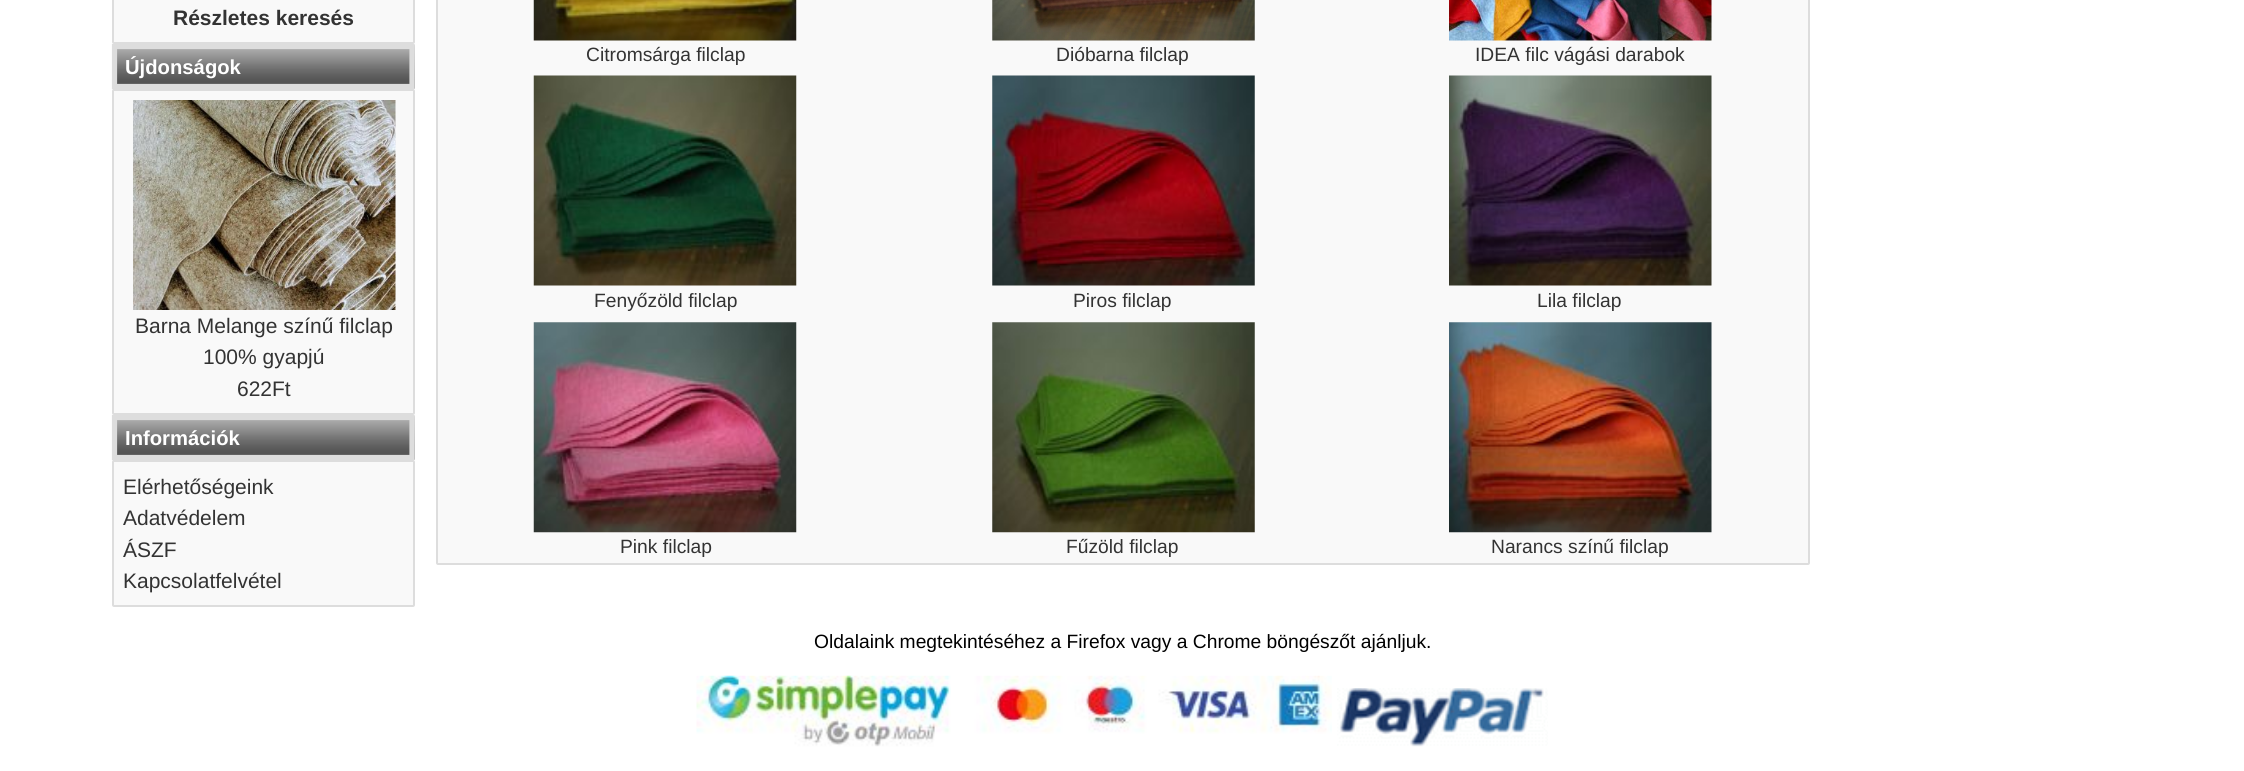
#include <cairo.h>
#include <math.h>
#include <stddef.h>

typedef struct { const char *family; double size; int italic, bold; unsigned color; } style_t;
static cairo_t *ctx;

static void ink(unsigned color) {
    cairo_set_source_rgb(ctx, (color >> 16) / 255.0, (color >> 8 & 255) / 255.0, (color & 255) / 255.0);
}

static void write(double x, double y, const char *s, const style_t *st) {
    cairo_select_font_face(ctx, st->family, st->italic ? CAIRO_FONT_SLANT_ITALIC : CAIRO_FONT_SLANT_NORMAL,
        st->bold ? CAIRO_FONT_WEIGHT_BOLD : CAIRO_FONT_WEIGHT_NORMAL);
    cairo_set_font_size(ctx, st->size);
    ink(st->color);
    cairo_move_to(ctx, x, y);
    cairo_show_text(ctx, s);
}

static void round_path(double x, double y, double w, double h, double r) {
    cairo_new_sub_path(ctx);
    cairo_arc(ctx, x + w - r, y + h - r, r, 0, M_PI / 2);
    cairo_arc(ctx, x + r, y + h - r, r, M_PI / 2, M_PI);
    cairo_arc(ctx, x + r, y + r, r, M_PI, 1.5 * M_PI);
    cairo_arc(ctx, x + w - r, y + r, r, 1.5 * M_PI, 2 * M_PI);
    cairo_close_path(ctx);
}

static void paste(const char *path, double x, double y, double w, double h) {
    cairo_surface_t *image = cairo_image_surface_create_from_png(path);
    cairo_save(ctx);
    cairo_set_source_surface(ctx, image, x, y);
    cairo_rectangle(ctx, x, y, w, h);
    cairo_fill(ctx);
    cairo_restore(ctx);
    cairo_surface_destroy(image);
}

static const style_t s1 = {"Liberation Sans", 21, 0, 1, 0x333333};
static const style_t s2 = {"Liberation Sans", 20.25, 0, 1, 0xffffff};
static const style_t s3 = {"Liberation Sans", 21, 0, 0, 0x333333};
static const style_t s4 = {"Liberation Sans", 19.25, 0, 0, 0x333333};
static const style_t s5 = {"Liberation Sans", 19.25, 0, 0, 0x000000};

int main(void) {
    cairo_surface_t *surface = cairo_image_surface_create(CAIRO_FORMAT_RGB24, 2244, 771);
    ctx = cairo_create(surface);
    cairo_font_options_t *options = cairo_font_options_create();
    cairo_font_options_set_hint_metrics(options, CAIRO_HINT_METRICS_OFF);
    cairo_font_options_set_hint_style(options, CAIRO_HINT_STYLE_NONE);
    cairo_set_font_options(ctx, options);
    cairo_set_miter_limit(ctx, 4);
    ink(0xffffff);
    cairo_paint(ctx);
    ink(0xf9f9f9);
    round_path(113, -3, 301, 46, 1);
    cairo_fill_preserve(ctx);
    ink(0xdddddd);
    cairo_stroke(ctx);
    write(173, 25, "Részletes keresés", &s1);
    paste("pic1.png", 112, 44, 303, 46);
    cairo_new_path(ctx);
    cairo_move_to(ctx, 114.5, 46.5);
    cairo_line_to(ctx, 412, 46.5);
    cairo_line_to(ctx, 412, 86.5);
    cairo_line_to(ctx, 114.5, 86.5);
    cairo_close_path(ctx);
    ink(0xdddddd);
    cairo_set_line_width(ctx, 5.2);
    cairo_stroke(ctx);
    write(125, 74, "Újdonságok", &s2);
    ink(0xf9f9f9);
    round_path(113, 90, 301, 324, 1);
    cairo_fill_preserve(ctx);
    ink(0xdddddd);
    cairo_set_line_width(ctx, 2);
    cairo_stroke(ctx);
    paste("pic2.png", 133, 100, 263, 210);
    write(135, 333, "Barna Melange színű filclap", &s3);
    write(203, 364, "100% gyapjú", &s3);
    write(237, 396, "622Ft", &s3);
    paste("pic1.png", 112, 415, 303, 46);
    cairo_new_path(ctx);
    cairo_move_to(ctx, 114.5, 417.5);
    cairo_line_to(ctx, 412, 417.5);
    cairo_line_to(ctx, 412, 457.5);
    cairo_line_to(ctx, 114.5, 457.5);
    cairo_close_path(ctx);
    ink(0xdddddd);
    cairo_set_line_width(ctx, 5.2);
    cairo_stroke(ctx);
    write(125, 445, "Információk", &s2);
    ink(0xf9f9f9);
    round_path(113, 461, 301, 145, 1);
    cairo_fill_preserve(ctx);
    ink(0xdddddd);
    cairo_set_line_width(ctx, 2);
    cairo_stroke(ctx);
    write(123, 494, "Elérhetőségeink", &s3);
    write(123, 525, "Adatvédelem", &s3);
    write(123, 557, "ÁSZF", &s3);
    write(123, 588, "Kapcsolatfelvétel", &s3);
    ink(0xf9f9f9);
    cairo_new_path(ctx);
    cairo_move_to(ctx, 437, -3);
    cairo_line_to(ctx, 1809, -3);
    cairo_line_to(ctx, 1809, 563);
    cairo_curve_to(ctx, 1809, 563.5, 1808.5, 564, 1808, 564);
    cairo_line_to(ctx, 438, 564);
    cairo_curve_to(ctx, 437.5, 564, 437, 563.5, 437, 563);
    cairo_close_path(ctx);
    cairo_fill_preserve(ctx);
    ink(0xdddddd);
    cairo_stroke(ctx);
    paste("pic3.png", 533, 0, 264, 41);
    write(586, 61, "Citromsárga filclap", &s4);
    paste("pic4.png", 992, 0, 263, 41);
    write(1056, 61, "Dióbarna filclap", &s4);
    paste("pic5.png", 1449, 0, 263, 41);
    write(1475, 61, "IDEA filc vágási darabok", &s4);
    paste("pic6.png", 533, 75, 264, 211);
    write(594, 307, "Fenyőzöld filclap", &s4);
    paste("pic7.png", 992, 75, 263, 211);
    write(1073, 307, "Piros filclap", &s4);
    paste("pic8.png", 1449, 75, 263, 211);
    write(1537, 307, "Lila filclap", &s4);
    paste("pic9.png", 533, 322, 264, 211);
    write(620, 553, "Pink filclap", &s4);
    paste("pic10.png", 992, 322, 263, 211);
    write(1066, 553, "Fűzöld filclap", &s4);
    paste("pic11.png", 1449, 322, 263, 211);
    write(1491, 553, "Narancs színű filclap", &s4);
    write(814, 648, "Oldalaink megtekintéséhez a Firefox vagy a Chrome böngészőt ajánljuk.", &s5);
    paste("pic12.png", 696, 675, 636, 72);
    paste("pic13.png", 1337, 688, 211, 59);
    cairo_surface_write_to_png(surface, "screenshot.png");
    cairo_font_options_destroy(options);
    cairo_destroy(ctx);
    cairo_surface_destroy(surface);
    return 0;
}
